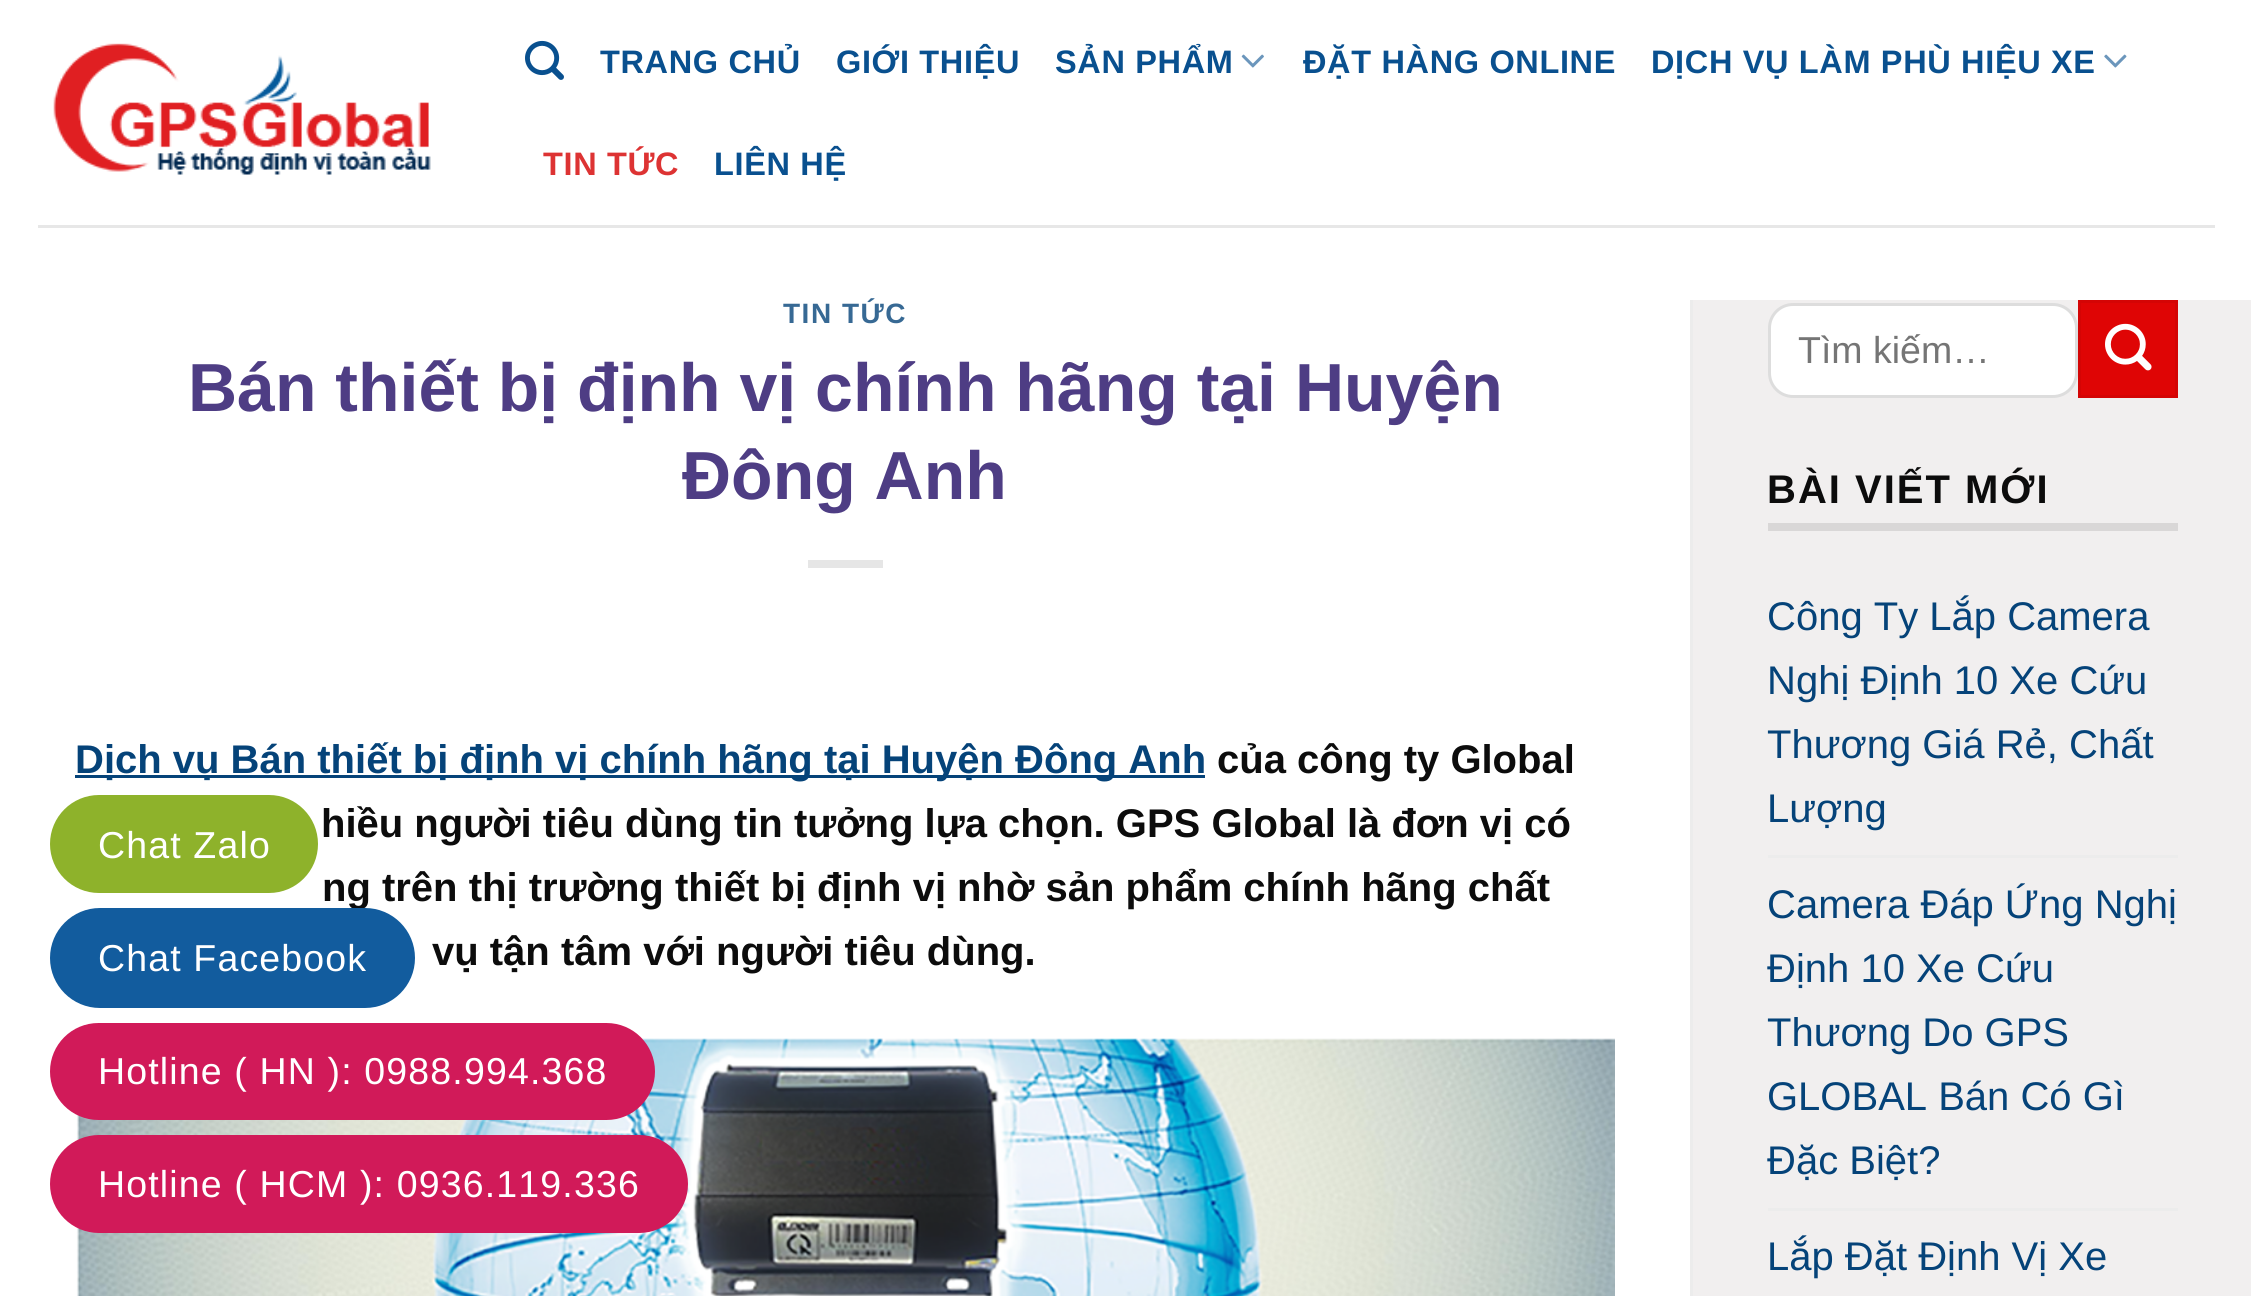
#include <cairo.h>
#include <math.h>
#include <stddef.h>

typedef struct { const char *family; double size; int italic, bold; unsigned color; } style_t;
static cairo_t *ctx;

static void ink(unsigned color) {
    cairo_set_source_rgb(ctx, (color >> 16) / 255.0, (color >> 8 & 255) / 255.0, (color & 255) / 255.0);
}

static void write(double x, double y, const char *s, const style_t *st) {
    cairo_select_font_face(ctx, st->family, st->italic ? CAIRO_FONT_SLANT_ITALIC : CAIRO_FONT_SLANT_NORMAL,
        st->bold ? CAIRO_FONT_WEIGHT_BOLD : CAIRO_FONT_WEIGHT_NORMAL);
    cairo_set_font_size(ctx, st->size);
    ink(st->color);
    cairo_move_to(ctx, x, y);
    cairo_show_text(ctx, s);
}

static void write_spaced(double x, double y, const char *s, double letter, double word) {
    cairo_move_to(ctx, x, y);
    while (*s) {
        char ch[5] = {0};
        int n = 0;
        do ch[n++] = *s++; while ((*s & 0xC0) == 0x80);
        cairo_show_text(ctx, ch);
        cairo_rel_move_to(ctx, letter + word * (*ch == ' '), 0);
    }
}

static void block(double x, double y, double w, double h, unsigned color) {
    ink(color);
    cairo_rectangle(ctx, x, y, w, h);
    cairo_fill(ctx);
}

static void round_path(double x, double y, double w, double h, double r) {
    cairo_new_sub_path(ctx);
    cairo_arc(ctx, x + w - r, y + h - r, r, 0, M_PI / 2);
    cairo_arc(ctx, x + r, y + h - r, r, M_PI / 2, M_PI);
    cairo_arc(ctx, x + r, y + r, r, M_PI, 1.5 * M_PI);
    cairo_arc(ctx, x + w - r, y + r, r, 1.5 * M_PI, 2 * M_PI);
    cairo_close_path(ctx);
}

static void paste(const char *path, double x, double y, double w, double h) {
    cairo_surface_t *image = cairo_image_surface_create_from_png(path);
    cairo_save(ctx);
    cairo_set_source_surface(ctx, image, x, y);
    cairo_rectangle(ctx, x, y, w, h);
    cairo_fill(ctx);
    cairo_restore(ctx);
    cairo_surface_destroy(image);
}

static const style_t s1 = {"Liberation Sans", 68, 0, 1, 0x4e3d84};
static const style_t s2 = {"Liberation Sans", 40, 0, 1, 0x054379};
static const style_t s3 = {"Liberation Sans", 40, 0, 1, 0x0c0c0c};
static const style_t s4 = {"Liberation Sans", 37.5, 0, 0, 0x757575};
static const style_t s5 = {"Liberation Sans", 40, 0, 0, 0x054379};

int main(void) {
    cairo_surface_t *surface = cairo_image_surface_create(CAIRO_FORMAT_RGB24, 2251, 1296);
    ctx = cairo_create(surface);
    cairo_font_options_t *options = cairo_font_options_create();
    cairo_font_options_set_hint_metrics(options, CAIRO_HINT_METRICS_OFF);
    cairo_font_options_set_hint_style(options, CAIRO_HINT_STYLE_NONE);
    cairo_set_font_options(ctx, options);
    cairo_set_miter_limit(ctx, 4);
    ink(0xffffff);
    cairo_paint(ctx);
    paste("pic1.png", 53, 43, 378, 132);
    paste("pic2.png", 525, 40, 39, 40);
    cairo_select_font_face(ctx, "Liberation Sans", CAIRO_FONT_SLANT_NORMAL, CAIRO_FONT_WEIGHT_BOLD);
    cairo_set_font_size(ctx, 32.5);
    ink(0x09508f);
    write_spaced(600, 73, "TRANG CHỦ", 0.65, 0);
    write_spaced(836, 73, "GIỚI THIỆU", 0.65, 0);
    write_spaced(1055, 73, "SẢN PHẨM", 0.65, 0);
    paste("pic3.png", 1241, 54, 23, 14);
    write_spaced(1303, 73, "ĐẶT HÀNG ONLINE", 0.65, 0);
    write_spaced(1651, 73, "DỊCH VỤ LÀM PHÙ HIỆU XE", 0.65, 0);
    paste("pic4.png", 2104, 54, 23, 14);
    ink(0xdd3333);
    write_spaced(543, 175, "TIN TỨC", 0.65, 0);
    ink(0x09508f);
    write_spaced(714, 175, "LIÊN HỆ", 0.65, 0);
    block(38, 225, 2177, 3, 0xe7e7e7);
    cairo_set_font_size(ctx, 28);
    ink(0x376994);
    write_spaced(783, 323, "TIN TỨC", 1.5, 0);
    write(188, 411, "Bán thiết bị định vị chính hãng tại Huyện", &s1);
    write(682, 499, "Đông Anh", &s1);
    block(808, 560, 75, 8, 0xe6e6e6);
    block(75, 775, 1130, 3, 0x054379);
    write(75, 773, "Dịch vụ Bán thiết bị định vị chính hãng tại Huyện Đông Anh", &s2);
    write(1217, 773, "của công ty Global", &s3);
    write(321, 837, "hiều người tiêu dùng tin tưởng lựa chọn. GPS Global là đơn vị có", &s3);
    write(322, 901, "ng trên thị trường thiết bị định vị nhờ sản phẩm chính hãng chất", &s3);
    write(432, 965, "vụ tận tâm với người tiêu dùng.", &s3);
    paste("pic5.png", 76, 1038, 1539, 258);
    block(1693, 300, 558, 996, 0xf1efef);
    block(1690, 300, 3, 996, 0xececec);
    ink(0xffffff);
    round_path(1769.5, 304.5, 307, 92, 23.5);
    cairo_fill_preserve(ctx);
    ink(0xdddddd);
    cairo_set_line_width(ctx, 3);
    cairo_stroke(ctx);
    write(1798, 363, "Tìm kiếm…", &s4);
    ink(0xdf0505);
    cairo_rectangle(ctx, 2079.5, 301.5, 97, 95);
    cairo_fill_preserve(ctx);
    ink(0xd40505);
    cairo_stroke(ctx);
    paste("pic6.png", 2105, 323, 47, 48);
    cairo_select_font_face(ctx, "Liberation Sans", CAIRO_FONT_SLANT_NORMAL, CAIRO_FONT_WEIGHT_BOLD);
    cairo_set_font_size(ctx, 40);
    ink(0x0c0c0c);
    write_spaced(1767, 503, "BÀI VIẾT MỚI", 2, 0);
    block(1768, 523, 410, 8, 0xd9d7d7);
    write(1767, 630, "Công Ty Lắp Camera", &s5);
    write(1767, 694, "Nghị Định 10 Xe Cứu", &s5);
    write(1767, 758, "Thương Giá Rẻ, Chất", &s5);
    write(1767, 822, "Lượng", &s5);
    block(1768, 855, 410, 3, 0xececec);
    write(1767, 918, "Camera Đáp Ứng Nghị", &s5);
    write(1767, 982, "Định 10 Xe Cứu", &s5);
    write(1767, 1046, "Thương Do GPS", &s5);
    write(1767, 1110, "GLOBAL Bán Có Gì", &s5);
    write(1767, 1174, "Đặc Biệt?", &s5);
    block(1768, 1208, 410, 3, 0xececec);
    write(1767, 1270, "Lắp Đặt Định Vị Xe", &s5);
    ink(0x8eb22b);
    round_path(50, 795, 268, 98, 49);
    cairo_fill(ctx);
    cairo_set_font_size(ctx, 37.5);
    ink(0xffffff);
    write_spaced(98, 858, "Chat Zalo", 1.15, 0);
    ink(0x125c9e);
    round_path(50, 908, 365, 100, 50);
    cairo_fill(ctx);
    ink(0xffffff);
    write_spaced(98, 971, "Chat Facebook", 1.15, 0);
    ink(0xd11a59);
    round_path(50, 1023, 605, 97, 48.5);
    cairo_fill(ctx);
    ink(0xffffff);
    write_spaced(98, 1084, "Hotline ( HN ): 0988.994.368", 1.15, 0);
    ink(0xd11a59);
    round_path(50, 1135, 638, 98, 49);
    cairo_fill(ctx);
    ink(0xffffff);
    write_spaced(98, 1197, "Hotline ( HCM ): 0936.119.336", 1.15, 0);
    cairo_surface_write_to_png(surface, "screenshot.png");
    cairo_font_options_destroy(options);
    cairo_destroy(ctx);
    cairo_surface_destroy(surface);
    return 0;
}
